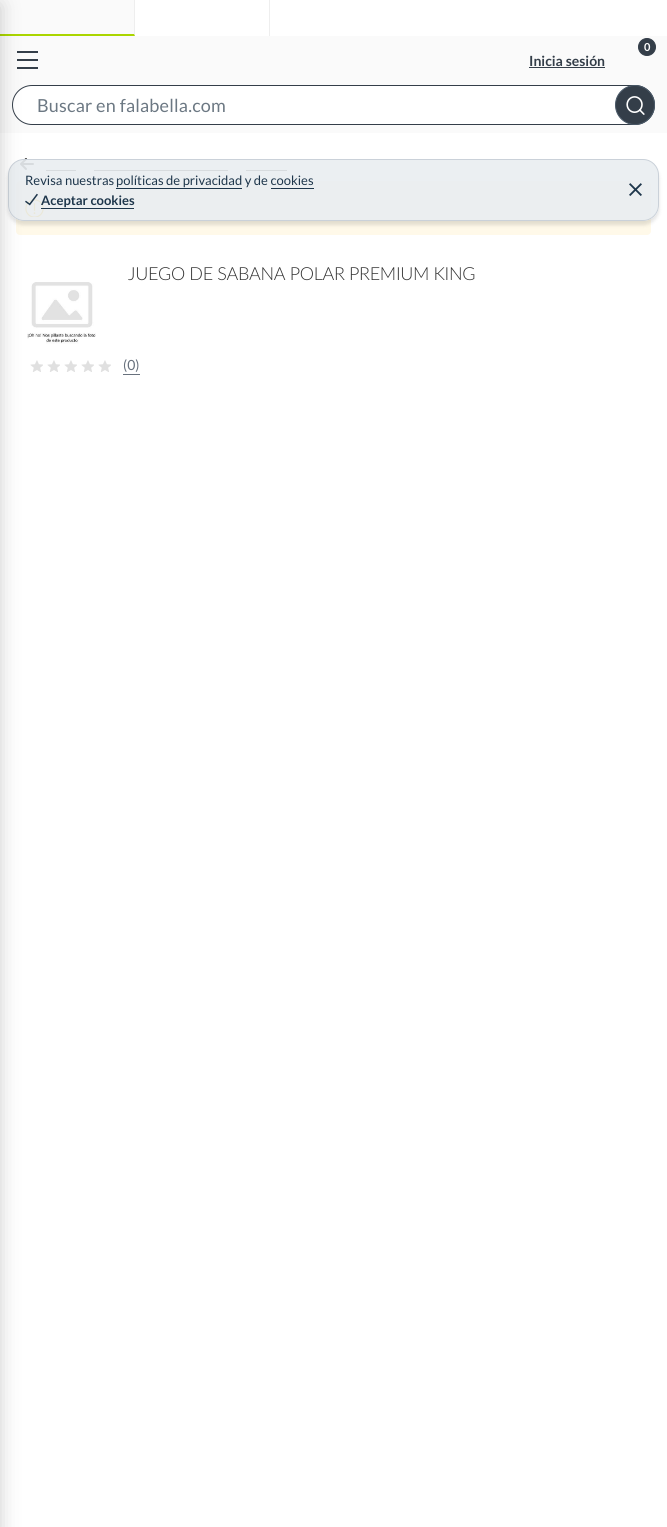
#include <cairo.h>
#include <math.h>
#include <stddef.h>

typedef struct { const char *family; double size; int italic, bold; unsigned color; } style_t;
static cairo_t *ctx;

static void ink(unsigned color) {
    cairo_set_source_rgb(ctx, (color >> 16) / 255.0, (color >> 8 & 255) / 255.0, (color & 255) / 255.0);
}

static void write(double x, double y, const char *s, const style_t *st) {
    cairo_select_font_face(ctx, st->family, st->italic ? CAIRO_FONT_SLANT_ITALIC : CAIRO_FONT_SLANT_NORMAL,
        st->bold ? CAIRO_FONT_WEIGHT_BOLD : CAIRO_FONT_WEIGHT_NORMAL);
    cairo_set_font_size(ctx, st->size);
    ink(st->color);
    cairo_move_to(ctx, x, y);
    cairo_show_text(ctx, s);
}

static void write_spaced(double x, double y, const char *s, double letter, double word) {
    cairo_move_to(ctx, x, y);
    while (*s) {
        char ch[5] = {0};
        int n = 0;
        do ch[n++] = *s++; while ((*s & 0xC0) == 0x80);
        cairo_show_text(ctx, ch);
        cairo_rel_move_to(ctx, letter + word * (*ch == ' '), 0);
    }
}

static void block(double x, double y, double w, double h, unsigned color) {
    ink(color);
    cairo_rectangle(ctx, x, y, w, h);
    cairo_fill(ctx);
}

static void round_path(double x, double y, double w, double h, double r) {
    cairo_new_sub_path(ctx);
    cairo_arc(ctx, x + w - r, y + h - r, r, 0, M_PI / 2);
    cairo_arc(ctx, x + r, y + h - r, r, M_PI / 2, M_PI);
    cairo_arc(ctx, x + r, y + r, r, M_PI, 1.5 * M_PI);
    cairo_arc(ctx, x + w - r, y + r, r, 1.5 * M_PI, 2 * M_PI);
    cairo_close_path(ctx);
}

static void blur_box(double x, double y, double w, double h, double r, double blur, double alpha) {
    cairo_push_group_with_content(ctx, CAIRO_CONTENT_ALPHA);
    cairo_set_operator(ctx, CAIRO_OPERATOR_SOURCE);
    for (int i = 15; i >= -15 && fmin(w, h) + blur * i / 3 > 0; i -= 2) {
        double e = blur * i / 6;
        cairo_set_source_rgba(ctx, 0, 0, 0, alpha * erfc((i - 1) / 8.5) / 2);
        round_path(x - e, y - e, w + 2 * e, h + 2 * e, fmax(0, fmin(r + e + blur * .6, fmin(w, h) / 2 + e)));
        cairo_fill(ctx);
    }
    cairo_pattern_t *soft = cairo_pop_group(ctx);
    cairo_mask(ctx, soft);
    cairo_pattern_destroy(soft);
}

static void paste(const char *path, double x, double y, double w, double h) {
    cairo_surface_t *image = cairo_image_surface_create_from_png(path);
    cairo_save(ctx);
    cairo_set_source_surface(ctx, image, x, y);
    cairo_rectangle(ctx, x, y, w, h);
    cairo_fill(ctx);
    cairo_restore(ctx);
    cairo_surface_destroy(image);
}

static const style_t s1 = {"Lato", 11, 0, 1, 0xffffff};
static const style_t s2 = {"Lato", 14, 0, 1, 0x343e49};
static const style_t s3 = {"Lato", 13, 0, 0, 0x1e364b};
static const style_t s4 = {"Lato", 13, 0, 1, 0x1e364b};
static const style_t s5 = {"Lato", 14, 0, 0, 0x68717d};

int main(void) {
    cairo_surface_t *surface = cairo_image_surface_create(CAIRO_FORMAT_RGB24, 667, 1527);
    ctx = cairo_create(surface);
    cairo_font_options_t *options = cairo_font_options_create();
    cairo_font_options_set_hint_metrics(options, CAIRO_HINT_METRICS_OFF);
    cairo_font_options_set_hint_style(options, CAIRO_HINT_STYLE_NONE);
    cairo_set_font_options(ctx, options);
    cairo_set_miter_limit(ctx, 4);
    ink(0xffffff);
    cairo_paint(ctx);
    block(0, 0, 135, 36, 0xfafafa);
    ink(0xeeeeee);
    cairo_new_path(ctx);
    cairo_move_to(ctx, 135, 0);
    cairo_line_to(ctx, 135, 36);
    cairo_line_to(ctx, 134, 34);
    cairo_line_to(ctx, 134, 0);
    cairo_close_path(ctx);
    cairo_fill(ctx);
    ink(0xaad500);
    cairo_new_path(ctx);
    cairo_move_to(ctx, 135, 36);
    cairo_line_to(ctx, 0, 36);
    cairo_line_to(ctx, 0, 34);
    cairo_line_to(ctx, 134, 34);
    cairo_close_path(ctx);
    cairo_fill(ctx);
    block(269, 0, 1, 36, 0xeeeeee);
    block(0, 36, 667, 97, 0xfafafa);
    block(17, 59, 21, 2, 0x343e49);
    block(17, 51, 21, 2, 0x343e49);
    block(17, 67, 21, 2, 0x343e49);
    ink(0xffffff);
    round_path(12.5, 85.5, 642, 39, 19.5);
    cairo_fill_preserve(ctx);
    ink(0x343e49);
    cairo_set_line_width(ctx, 1);
    cairo_stroke(ctx);
    paste("pic4.png", 20, 158, 14, 12);
    block(46, 170, 30, 1, 0x333333);
    block(94, 170, 134, 1, 0x333333);
    block(246, 170, 41, 1, 0x333333);
    ink(0xfff9e9);
    round_path(16, 181, 635, 54, 4);
    cairo_fill(ctx);
    paste("pic5.png", 25, 199, 19, 18);
    cairo_save(ctx);
    cairo_set_fill_rule(ctx, CAIRO_FILL_RULE_EVEN_ODD);
    cairo_new_path(ctx);
    cairo_move_to(ctx, 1, 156);
    cairo_line_to(ctx, 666, 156);
    cairo_line_to(ctx, 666, 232);
    cairo_line_to(ctx, 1, 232);
    cairo_close_path(ctx);
    cairo_move_to(ctx, 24, 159);
    cairo_line_to(ctx, 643, 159);
    cairo_curve_to(ctx, 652, 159, 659, 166, 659, 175);
    cairo_line_to(ctx, 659, 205);
    cairo_curve_to(ctx, 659, 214, 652, 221, 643, 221);
    cairo_line_to(ctx, 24, 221);
    cairo_curve_to(ctx, 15, 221, 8, 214, 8, 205);
    cairo_line_to(ctx, 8, 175);
    cairo_curve_to(ctx, 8, 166, 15, 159, 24, 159);
    cairo_close_path(ctx);
    cairo_clip(ctx);
    ink(0x000000);
    blur_box(8, 163, 651, 62, 16, 2, 0.12);
    cairo_restore(ctx);
    cairo_set_source_rgba(ctx, 0.914, 0.929, 0.945, 0.9);
    round_path(8.5, 159.5, 650, 61, 15.5);
    cairo_fill_preserve(ctx);
    ink(0xcad1d9);
    cairo_stroke(ctx);
    paste("pic2.png", 25, 193, 13, 13);
    paste("pic6.png", 27, 282, 69, 62);
    paste("pic7.png", 30, 360, 13, 12);
    ink(0x000000);
    blur_box(-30, 5, 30, 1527, 0, 10, 0.2);
    ink(0x343e49);
    cairo_arc(ctx, 647, 47, 8.5, 0, 2 * M_PI);
    cairo_fill_preserve(ctx);
    cairo_stroke(ctx);
    write(644, 51, "0", &s1);
    write(529, 66, "Inicia sesión", &s2);
    block(529, 67, 76, 1, 0x343e49);
    cairo_select_font_face(ctx, "Lato", CAIRO_FONT_SLANT_NORMAL, CAIRO_FONT_WEIGHT_NORMAL);
    cairo_set_font_size(ctx, 18);
    ink(0x6c7883);
    write_spaced(37, 112, "Buscar en falabella.com", 0.2, 0);
    ink(0x343e49);
    cairo_new_path(ctx);
    cairo_arc(ctx, 635, 105, 19.5, 0, 2 * M_PI);
    cairo_fill_preserve(ctx);
    ink(0x495867);
    cairo_stroke(ctx);
    paste("pic1.png", 626, 96, 19, 19);
    write(25, 185, "Revisa nuestras", &s3);
    write(116, 185, "políticas de privacidad y de cookies", &s3);
    block(116, 188, 126, 1, 0x1e364b);
    block(271, 188, 43, 1, 0x1e364b);
    write(41, 205, "Aceptar cookies", &s4);
    block(41, 208, 93, 1, 0x1e364b);
    paste("pic3.png", 629, 183, 13, 13);
    cairo_select_font_face(ctx, "Lato Light", CAIRO_FONT_SLANT_NORMAL, CAIRO_FONT_WEIGHT_NORMAL);
    cairo_set_font_size(ctx, 18);
    ink(0x333333);
    write_spaced(128, 280, "JUEGO DE SABANA POLAR PREMIUM KING", -0.3, -0.25);
    paste("pic7.png", 47, 360, 13, 12);
    paste("pic7.png", 64, 360, 13, 12);
    paste("pic7.png", 81, 360, 13, 12);
    paste("pic7.png", 98, 360, 13, 12);
    block(123, 374, 17, 1, 0x68717d);
    write(123, 370, "(0)", &s5);
    cairo_surface_write_to_png(surface, "screenshot.png");
    cairo_font_options_destroy(options);
    cairo_destroy(ctx);
    cairo_surface_destroy(surface);
    return 0;
}
